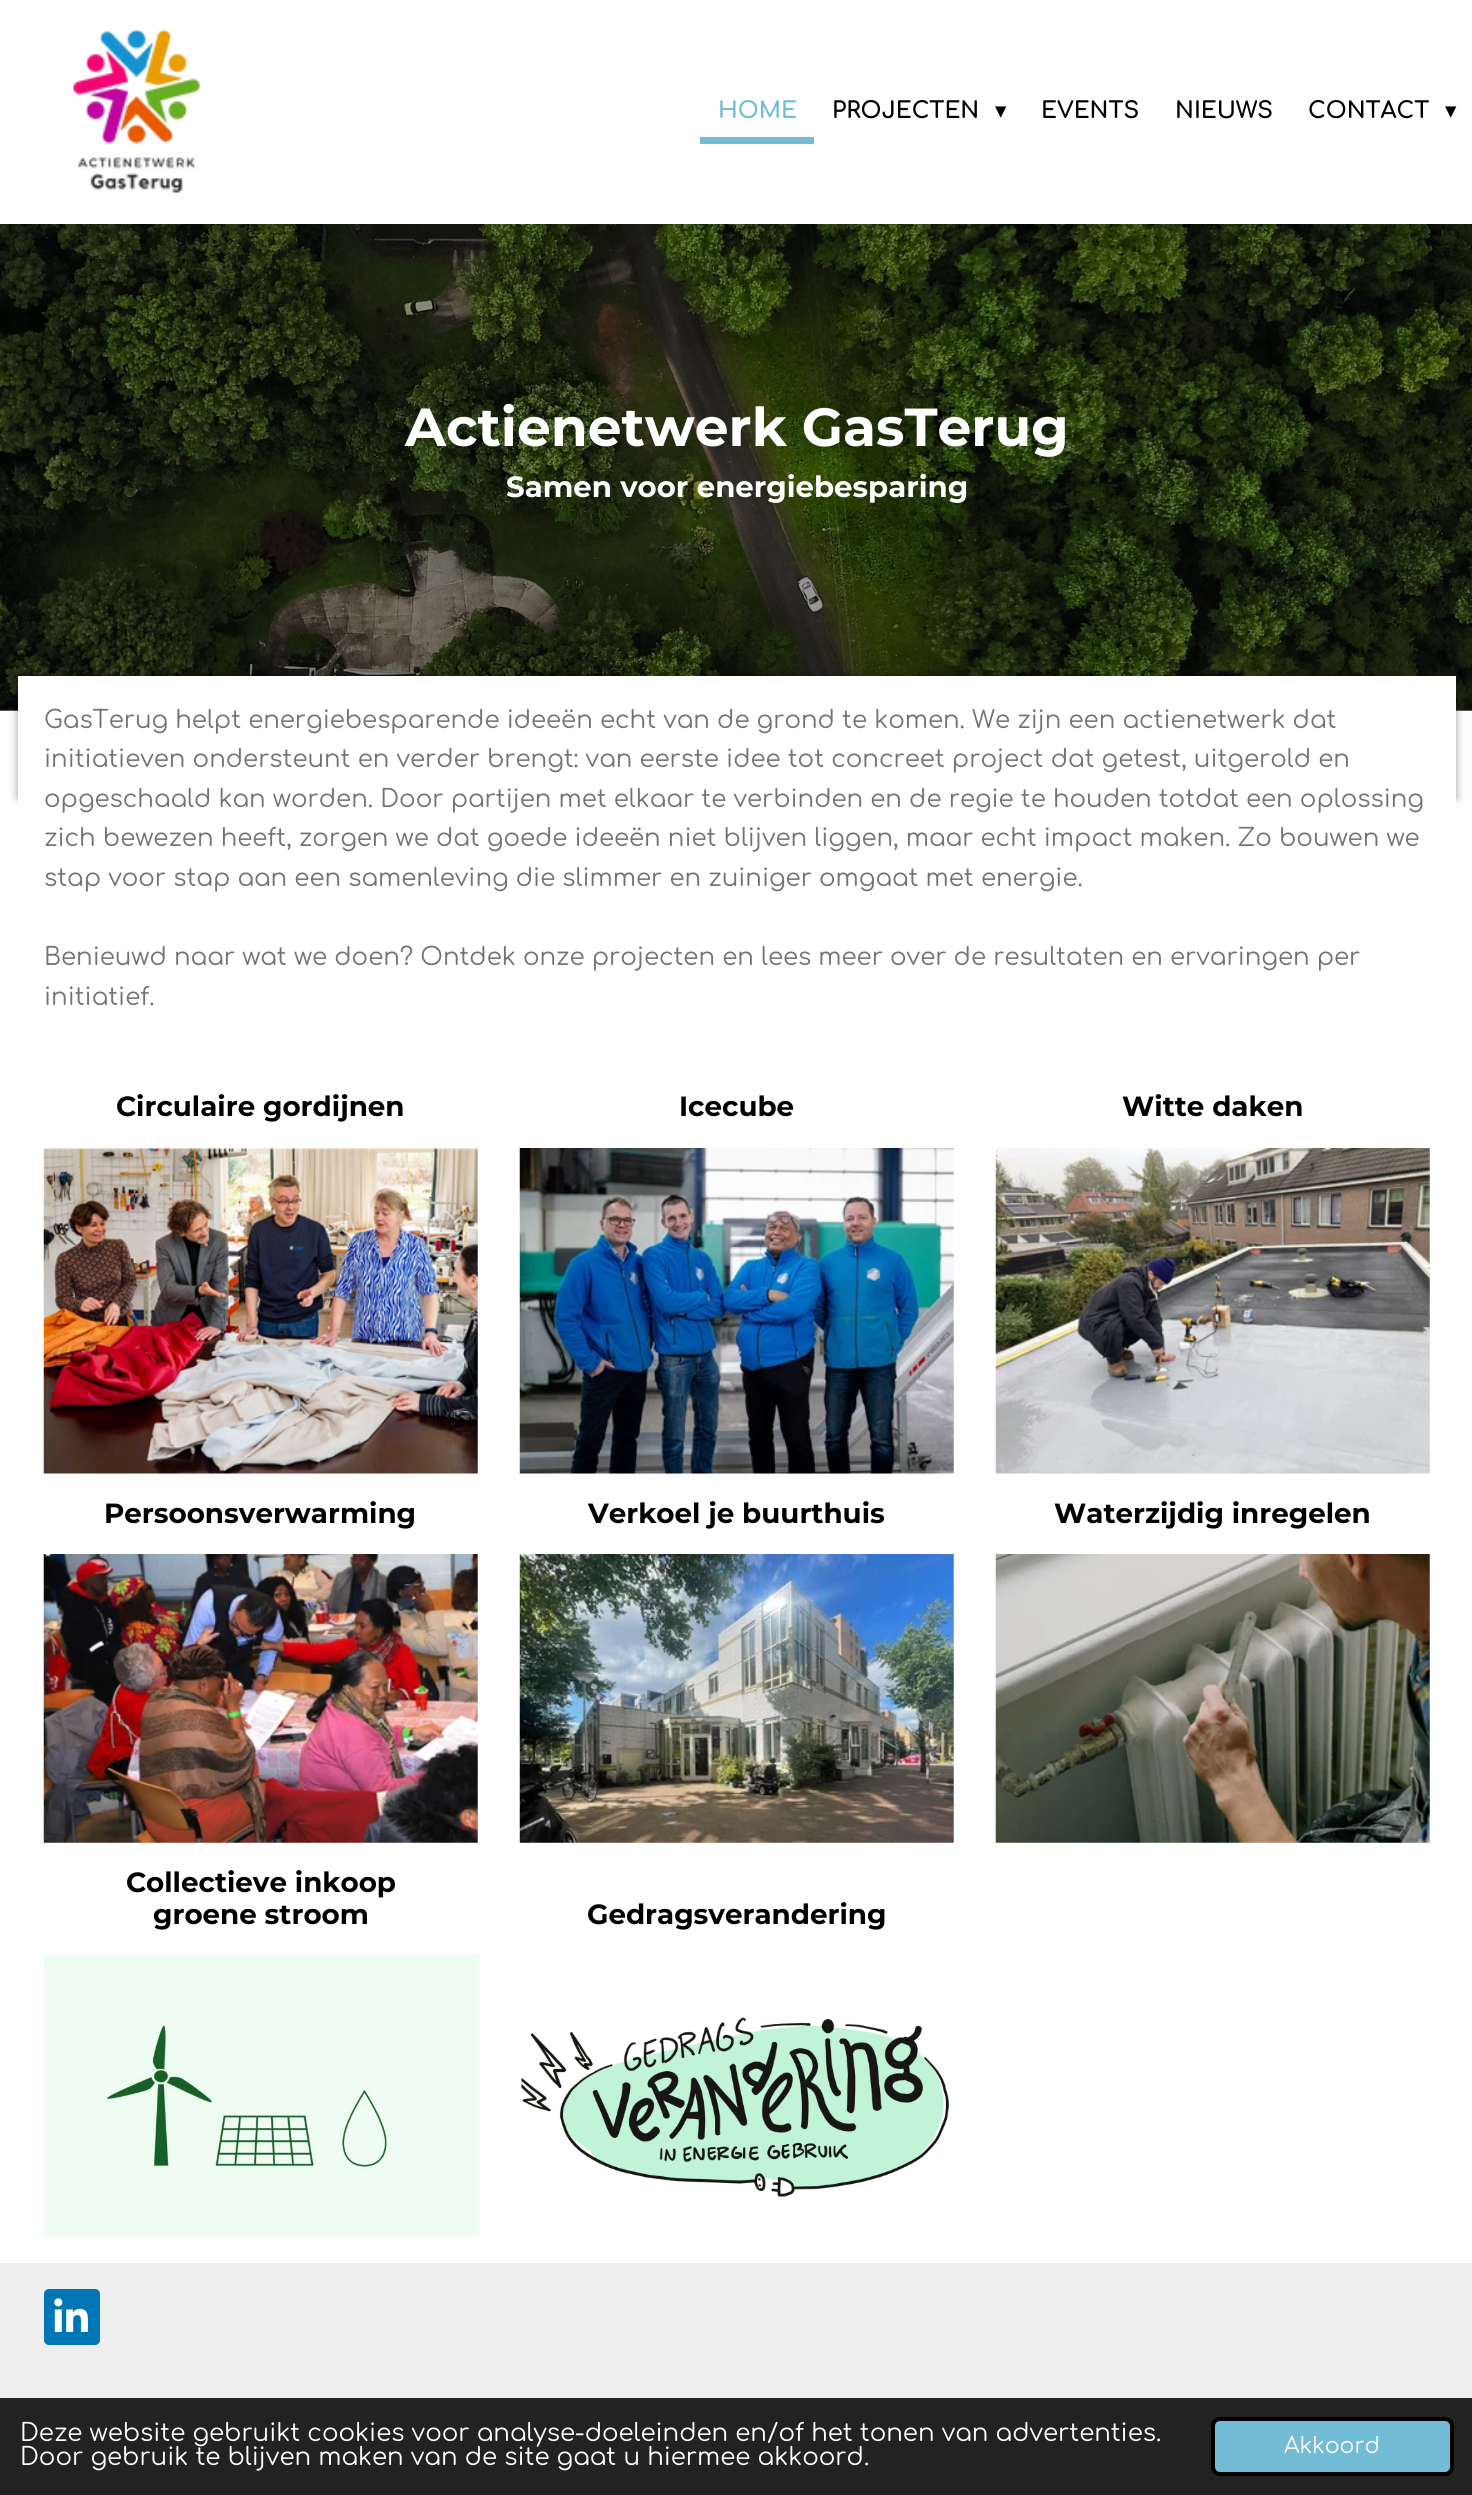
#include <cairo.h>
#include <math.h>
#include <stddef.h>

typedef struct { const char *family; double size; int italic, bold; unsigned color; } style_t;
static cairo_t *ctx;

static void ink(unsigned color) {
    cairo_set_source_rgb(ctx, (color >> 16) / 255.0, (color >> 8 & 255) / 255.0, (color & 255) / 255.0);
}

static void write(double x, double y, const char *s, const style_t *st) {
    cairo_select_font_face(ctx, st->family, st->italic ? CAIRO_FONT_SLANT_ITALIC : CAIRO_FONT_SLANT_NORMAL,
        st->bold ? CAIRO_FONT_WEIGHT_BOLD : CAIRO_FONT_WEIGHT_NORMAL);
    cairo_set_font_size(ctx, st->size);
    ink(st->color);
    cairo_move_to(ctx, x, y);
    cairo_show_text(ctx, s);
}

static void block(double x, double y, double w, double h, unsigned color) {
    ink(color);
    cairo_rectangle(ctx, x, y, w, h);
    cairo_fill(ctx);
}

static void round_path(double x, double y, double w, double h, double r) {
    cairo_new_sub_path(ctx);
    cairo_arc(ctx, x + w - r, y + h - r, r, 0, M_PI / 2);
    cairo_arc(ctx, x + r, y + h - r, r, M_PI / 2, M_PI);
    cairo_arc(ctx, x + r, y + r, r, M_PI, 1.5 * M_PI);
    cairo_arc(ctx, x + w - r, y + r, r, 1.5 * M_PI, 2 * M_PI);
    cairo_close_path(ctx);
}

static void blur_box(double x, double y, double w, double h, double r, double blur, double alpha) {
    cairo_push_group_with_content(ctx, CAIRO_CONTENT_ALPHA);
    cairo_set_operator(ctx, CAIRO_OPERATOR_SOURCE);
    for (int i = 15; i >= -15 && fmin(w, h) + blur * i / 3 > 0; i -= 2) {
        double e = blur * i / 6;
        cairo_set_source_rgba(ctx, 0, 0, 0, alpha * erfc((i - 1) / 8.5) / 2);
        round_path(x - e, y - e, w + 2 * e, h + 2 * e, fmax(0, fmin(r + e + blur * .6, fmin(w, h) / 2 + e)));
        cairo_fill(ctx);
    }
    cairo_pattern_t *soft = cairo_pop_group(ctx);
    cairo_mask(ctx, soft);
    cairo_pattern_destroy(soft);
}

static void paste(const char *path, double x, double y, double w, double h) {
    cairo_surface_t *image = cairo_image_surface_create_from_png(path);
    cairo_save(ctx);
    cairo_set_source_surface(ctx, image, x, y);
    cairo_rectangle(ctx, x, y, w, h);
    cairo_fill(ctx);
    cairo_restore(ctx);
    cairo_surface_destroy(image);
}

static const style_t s1 = {"Comfortaa", 22.75, 0, 1, 0x73bcd5};
static const style_t s2 = {"Comfortaa", 22.75, 0, 1, 0x000000};
static const style_t s3 = {"DejaVu Sans", 22.75, 0, 0, 0x000000};
static const style_t s4 = {"Montserrat", 53.5, 0, 1, 0xffffff};
static const style_t s5 = {"Montserrat", 29.2, 0, 1, 0xffffff};
static const style_t s6 = {"Comfortaa", 24.5, 0, 0, 0x737373};
static const style_t s7 = {"Montserrat", 27.75, 0, 1, 0x000000};
static const style_t s8 = {"Comfortaa", 24.5, 0, 0, 0xffffff};
static const style_t s9 = {"Comfortaa", 22, 0, 0, 0xffffff};

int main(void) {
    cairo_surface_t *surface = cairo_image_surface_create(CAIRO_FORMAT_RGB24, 1472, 2495);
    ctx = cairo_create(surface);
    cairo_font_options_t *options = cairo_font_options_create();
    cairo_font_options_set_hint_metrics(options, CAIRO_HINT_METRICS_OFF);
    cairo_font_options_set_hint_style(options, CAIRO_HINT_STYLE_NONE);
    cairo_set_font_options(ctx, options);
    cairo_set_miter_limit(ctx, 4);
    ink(0xffffff);
    cairo_paint(ctx);
    block(0, 710, 1472, 1, 0x999999);
    paste("pic1.png", 72, 29, 129, 164);
    block(700, 137, 114, 7, 0x73bcd5);
    write(718, 118, "HOME", &s1);
    write(832, 118, "PROJECTEN", &s2);
    write(995, 118, "▾", &s3);
    write(1041, 118, "EVENTS", &s2);
    write(1175, 118, "NIEUWS", &s2);
    write(1308, 118, "CONTACT", &s2);
    write(1445, 118, "▾", &s3);
    paste("pic2.png", 0, 224, 1472, 487);
    write(405, 446, "Actienetwerk GasTerug", &s4);
    write(506, 497, "Samen voor energiebesparing", &s5);
    ink(0x000000);
    blur_box(18, 676, 1438, 122, 0, 4.5, 0.4);
    block(18, 676, 1438, 131, 0xffffff);
    write(44, 728, "GasTerug helpt energiebesparende ideeën echt van de grond te komen. We zijn een actienetwerk dat", &s6);
    write(44, 767, "initiatieven ondersteunt en verder brengt: van eerste idee tot concreet project dat getest, uitgerold en", &s6);
    write(44, 807, "opgeschaald kan worden. Door partijen met elkaar te verbinden en de regie te houden totdat een oplossing", &s6);
    write(44, 846, "zich bewezen heeft, zorgen we dat goede ideeën niet blijven liggen, maar echt impact maken. Zo bouwen we", &s6);
    write(44, 886, "stap voor stap aan een samenleving die slimmer en zuiniger omgaat met energie.", &s6);
    write(44, 965, "Benieuwd naar wat we doen? Ontdek onze projecten en lees meer over de resultaten en ervaringen per", &s6);
    write(44, 1005, "initiatief.", &s6);
    write(116, 1116, "Circulaire gordijnen", &s7);
    write(679, 1116, "Icecube", &s7);
    write(1122, 1116, "Witte daken", &s7);
    paste("pic3.png", 43, 1148, 435, 326);
    paste("pic4.png", 519, 1148, 435, 326);
    paste("pic5.png", 995, 1148, 435, 326);
    write(104, 1523, "Persoonsverwarming", &s7);
    paste("pic6.png", 43, 1554, 435, 289);
    write(588, 1523, "Verkoel je buurthuis", &s7);
    paste("pic7.png", 519, 1554, 435, 289);
    write(1054, 1523, "Waterzijdig inregelen", &s7);
    paste("pic8.png", 995, 1554, 435, 289);
    write(126, 1892, "Collectieve inkoop", &s7);
    write(153, 1924, "groene stroom", &s7);
    write(587, 1924, "Gedragsverandering", &s7);
    paste("pic9.png", 43, 1954, 437, 283);
    paste("pic10.png", 521, 2017, 428, 180);
    block(0, 2263, 1472, 135, 0xeeeeee);
    ink(0x0077b5);
    round_path(44, 2289, 56, 56, 5);
    cairo_fill(ctx);
    paste("pic11.png", 54, 2298, 34, 34);
    block(0, 2398, 1472, 97, 0x222222);
    write(20, 2441, "Deze website gebruikt cookies voor analyse-doeleinden en/of het tonen van advertenties.", &s8);
    write(20, 2465, "Door gebruik te blijven maken van de site gaat u hiermee akkoord.", &s8);
    ink(0x73bcd5);
    round_path(1213, 2419, 239, 55, 7);
    cairo_fill_preserve(ctx);
    ink(0x000000);
    cairo_set_line_width(ctx, 4);
    cairo_stroke(ctx);
    write(1284, 2453, "Akkoord", &s9);
    cairo_surface_write_to_png(surface, "screenshot.png");
    cairo_font_options_destroy(options);
    cairo_destroy(ctx);
    cairo_surface_destroy(surface);
    return 0;
}
